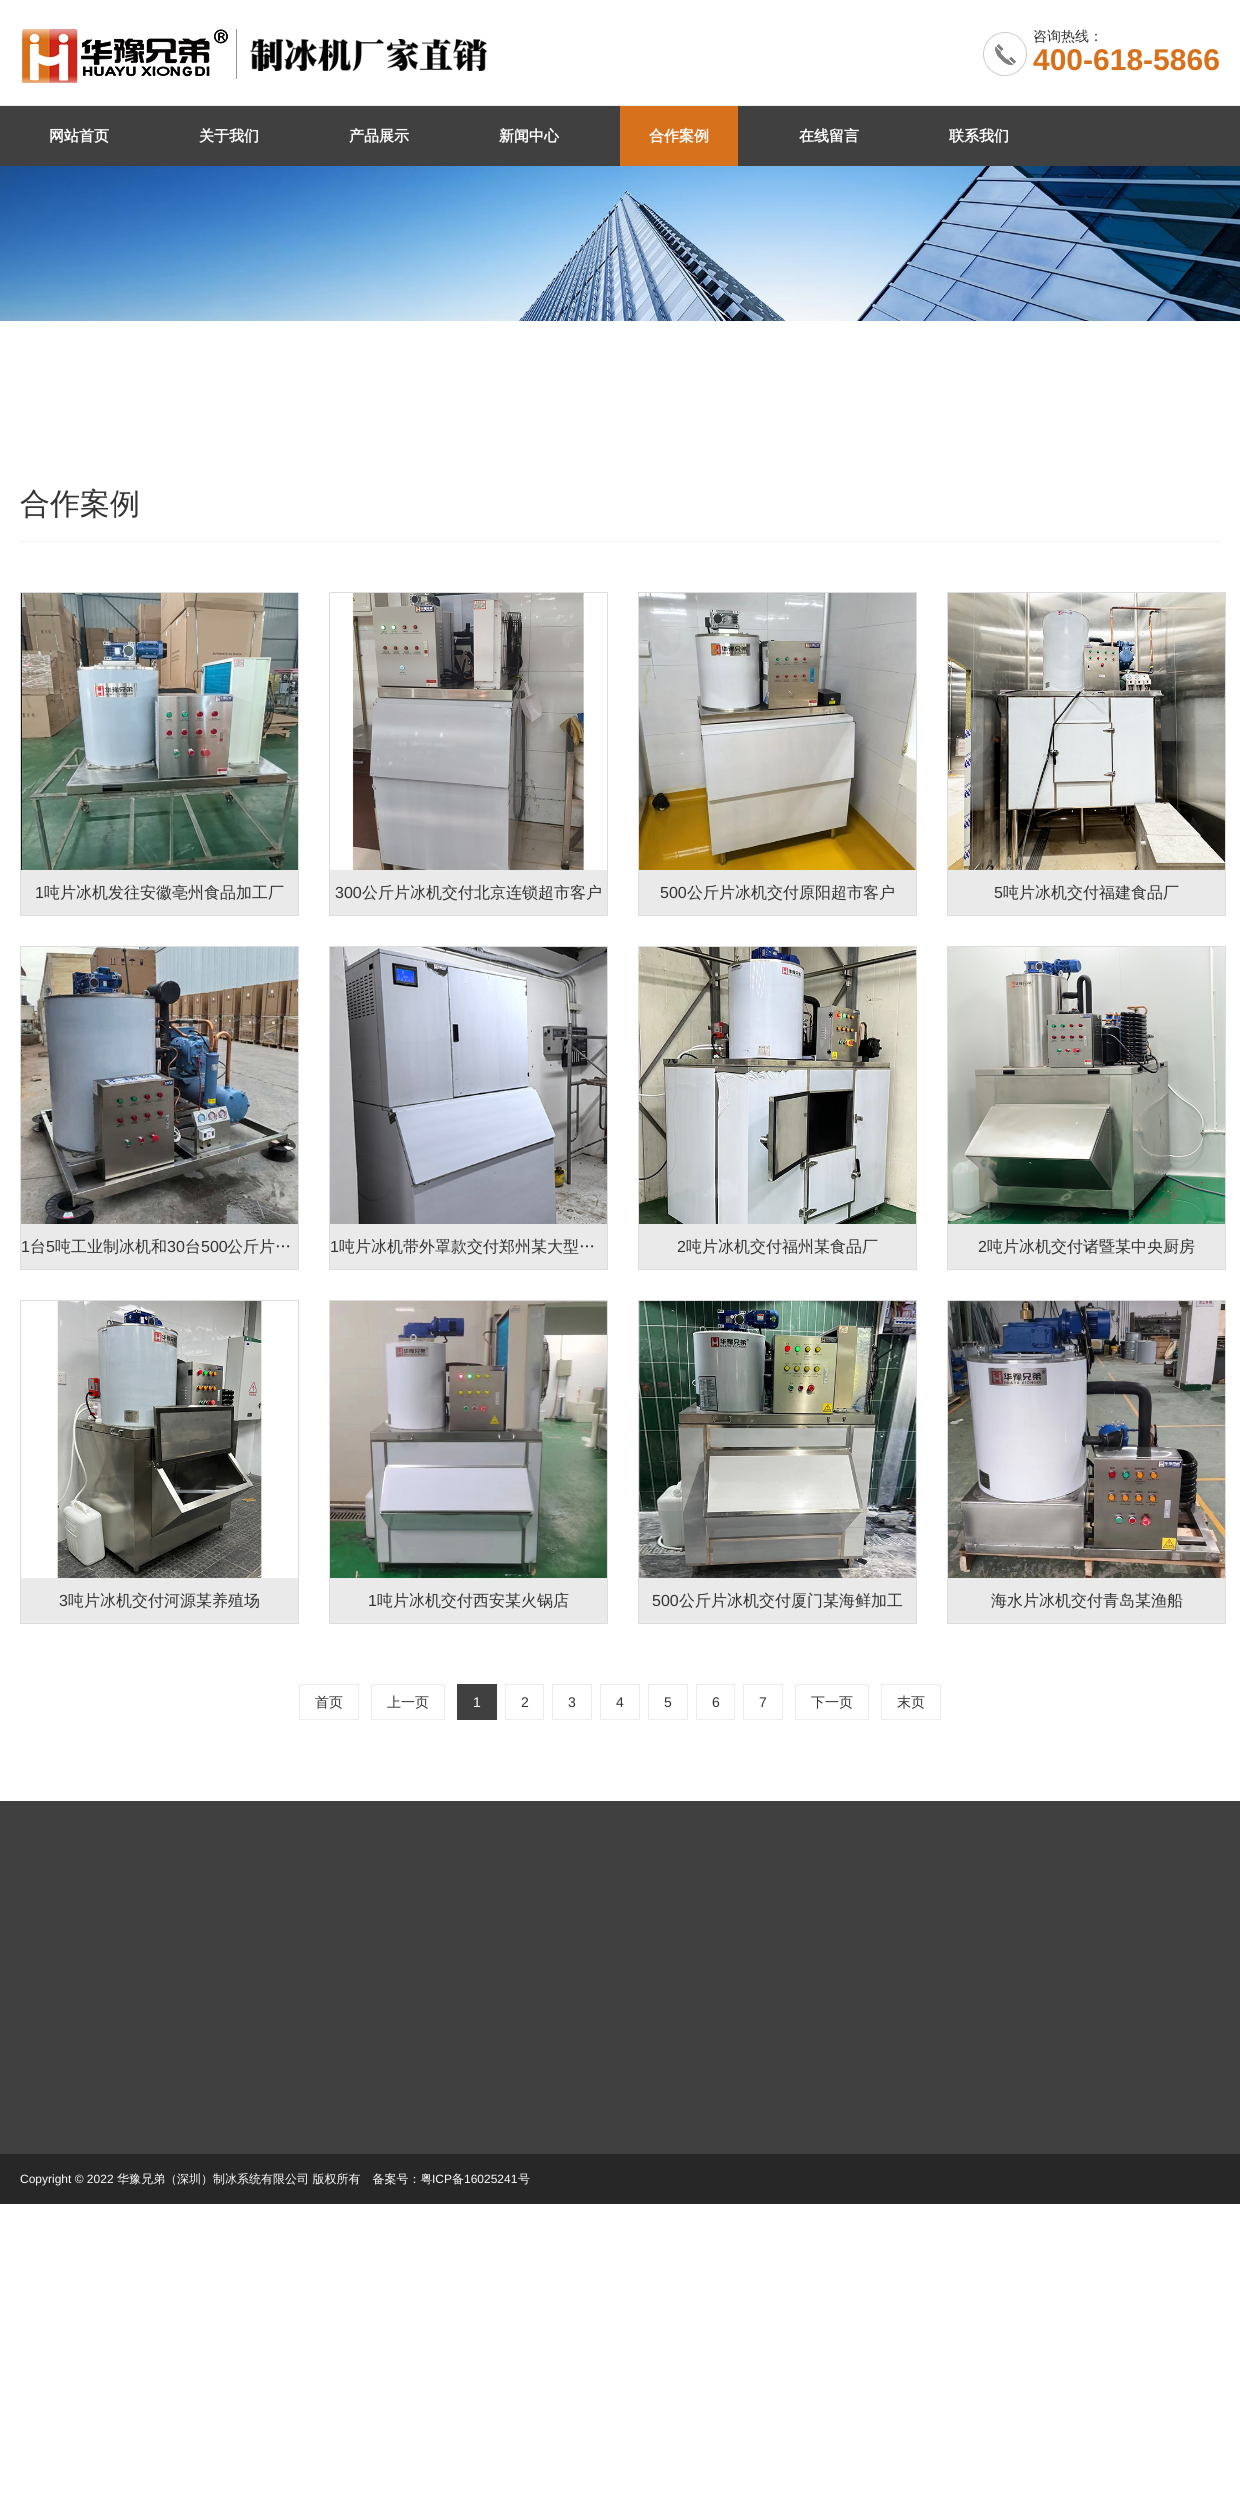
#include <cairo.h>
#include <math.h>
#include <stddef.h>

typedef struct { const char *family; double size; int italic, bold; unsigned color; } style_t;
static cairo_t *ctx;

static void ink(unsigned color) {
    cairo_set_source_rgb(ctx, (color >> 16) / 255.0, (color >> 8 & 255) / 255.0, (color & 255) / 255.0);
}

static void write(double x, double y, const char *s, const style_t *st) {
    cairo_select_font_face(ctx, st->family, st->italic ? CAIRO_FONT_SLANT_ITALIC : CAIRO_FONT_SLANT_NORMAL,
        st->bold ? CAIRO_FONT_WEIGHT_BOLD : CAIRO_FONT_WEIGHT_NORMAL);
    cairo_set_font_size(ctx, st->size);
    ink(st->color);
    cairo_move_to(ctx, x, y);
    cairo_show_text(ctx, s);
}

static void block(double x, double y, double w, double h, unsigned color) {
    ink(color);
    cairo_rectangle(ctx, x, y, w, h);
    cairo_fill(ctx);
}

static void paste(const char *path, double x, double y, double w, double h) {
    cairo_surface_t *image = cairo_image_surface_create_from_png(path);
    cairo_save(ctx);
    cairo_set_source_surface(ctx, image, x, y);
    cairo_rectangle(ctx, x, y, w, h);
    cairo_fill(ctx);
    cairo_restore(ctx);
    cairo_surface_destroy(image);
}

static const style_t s1 = {"WenQuanYi Zen Hei Medium", 14, 0, 0, 0x333333};
static const style_t s2 = {"Liberation Sans", 30, 0, 1, 0xd8711c};
static const style_t s3 = {"WenQuanYi Zen Hei", 15, 0, 1, 0xffffff};
static const style_t s4 = {"WenQuanYi Zen Hei Medium", 30, 0, 0, 0x333333};
static const style_t s5 = {"Liberation Sans", 16, 0, 0, 0x333333};
static const style_t s6 = {"WenQuanYi Zen Hei Medium", 16, 0, 0, 0x333333};
static const style_t s7 = {"Liberation Sans", 14, 0, 0, 0xffffff};
static const style_t s8 = {"Liberation Sans", 14, 0, 0, 0x333333};
static const style_t s9 = {"Liberation Sans", 12, 0, 0, 0xffffff};
static const style_t s10 = {"WenQuanYi Zen Hei Medium", 12, 0, 0, 0xffffff};

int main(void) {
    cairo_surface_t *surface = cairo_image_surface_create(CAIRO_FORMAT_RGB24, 1240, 2506);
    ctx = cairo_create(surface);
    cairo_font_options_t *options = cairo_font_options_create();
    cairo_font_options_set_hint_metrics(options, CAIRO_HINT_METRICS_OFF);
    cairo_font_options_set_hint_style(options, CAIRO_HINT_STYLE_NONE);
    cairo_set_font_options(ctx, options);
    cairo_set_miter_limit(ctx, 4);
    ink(0xffffff);
    cairo_paint(ctx);
    block(0, 105, 1240, 1, 0xededed);
    paste("pic1.png", 22, 29, 465, 54);
    paste("pic2.png", 983, 32, 44, 44);
    write(1033, 41, "咨询热线：", &s1);
    write(1033, 70, "400-618-5866", &s2);
    block(0, 106, 1240, 60, 0x404040);
    write(49, 141, "网站首页", &s3);
    write(199, 141, "关于我们", &s3);
    write(349, 141, "产品展示", &s3);
    write(499, 141, "新闻中心", &s3);
    block(620, 106, 118, 60, 0xd8711c);
    write(649, 141, "合作案例", &s3);
    write(799, 141, "在线留言", &s3);
    write(949, 141, "联系我们", &s3);
    paste("pic3.png", 0, 166, 1240, 155);
    block(20, 541, 1200, 1, 0xf2f2f2);
    write(20, 514, "合作案例", &s4);
    cairo_rectangle(ctx, 20.5, 592.5, 278, 323);
    ink(0xdddddd);
    cairo_set_line_width(ctx, 1);
    cairo_stroke(ctx);
    paste("pic4.png", 21, 593, 277, 277);
    block(21, 870, 277, 45, 0xeaeaea);
    write(35, 898, "1", &s5);
    write(44, 898, "吨片冰机发往安徽亳州食品加工厂", &s6);
    cairo_rectangle(ctx, 329.5, 592.5, 278, 323);
    ink(0xdddddd);
    cairo_stroke(ctx);
    paste("pic5.png", 352, 593, 232, 277);
    block(330, 870, 277, 45, 0xeaeaea);
    write(335, 898, "300", &s5);
    write(362, 898, "公斤片冰机交付北京连锁超市客户", &s6);
    cairo_rectangle(ctx, 638.5, 592.5, 278, 323);
    ink(0xdddddd);
    cairo_stroke(ctx);
    paste("pic6.png", 639, 593, 277, 277);
    block(639, 870, 277, 45, 0xeaeaea);
    write(660, 898, "500", &s5);
    write(687, 898, "公斤片冰机交付原阳超市客户", &s6);
    cairo_rectangle(ctx, 947.5, 592.5, 278, 323);
    ink(0xdddddd);
    cairo_stroke(ctx);
    paste("pic7.png", 948, 593, 277, 277);
    block(948, 870, 277, 45, 0xeaeaea);
    write(994, 898, "5", &s5);
    write(1003, 898, "吨片冰机交付福建食品厂", &s6);
    cairo_rectangle(ctx, 20.5, 946.5, 278, 323);
    ink(0xdddddd);
    cairo_stroke(ctx);
    paste("pic8.png", 21, 947, 277, 277);
    block(21, 1224, 277, 45, 0xeaeaea);
    write(21, 1252, "1", &s5);
    write(30, 1252, "台", &s6);
    write(46, 1252, "5", &s5);
    write(55, 1252, "吨工业制冰机和", &s6);
    write(167, 1252, "30", &s5);
    write(185, 1252, "台", &s6);
    write(201, 1252, "500", &s5);
    write(227, 1252, "公斤片…", &s6);
    cairo_rectangle(ctx, 329.5, 946.5, 278, 323);
    ink(0xdddddd);
    cairo_stroke(ctx);
    paste("pic9.png", 330, 947, 277, 277);
    block(330, 1224, 277, 45, 0xeaeaea);
    write(330, 1252, "1", &s5);
    write(339, 1252, "吨片冰机带外罩款交付郑州某大型…", &s6);
    cairo_rectangle(ctx, 638.5, 946.5, 278, 323);
    ink(0xdddddd);
    cairo_stroke(ctx);
    paste("pic10.png", 639, 947, 277, 277);
    block(639, 1224, 277, 45, 0xeaeaea);
    write(677, 1252, "2", &s5);
    write(686, 1252, "吨片冰机交付福州某食品厂", &s6);
    cairo_rectangle(ctx, 947.5, 946.5, 278, 323);
    ink(0xdddddd);
    cairo_stroke(ctx);
    paste("pic11.png", 948, 947, 277, 277);
    block(948, 1224, 277, 45, 0xeaeaea);
    write(978, 1252, "2", &s5);
    write(987, 1252, "吨片冰机交付诸暨某中央厨房", &s6);
    cairo_rectangle(ctx, 20.5, 1300.5, 278, 323);
    ink(0xdddddd);
    cairo_stroke(ctx);
    paste("pic12.png", 57, 1301, 205, 277);
    block(21, 1578, 277, 45, 0xeaeaea);
    write(59, 1606, "3", &s5);
    write(68, 1606, "吨片冰机交付河源某养殖场", &s6);
    cairo_rectangle(ctx, 329.5, 1300.5, 278, 323);
    ink(0xdddddd);
    cairo_stroke(ctx);
    paste("pic13.png", 330, 1301, 277, 277);
    block(330, 1578, 277, 45, 0xeaeaea);
    write(368, 1606, "1", &s5);
    write(377, 1606, "吨片冰机交付西安某火锅店", &s6);
    cairo_rectangle(ctx, 638.5, 1300.5, 278, 323);
    ink(0xdddddd);
    cairo_stroke(ctx);
    paste("pic14.png", 639, 1301, 277, 277);
    block(639, 1578, 277, 45, 0xeaeaea);
    write(652, 1606, "500", &s5);
    write(679, 1606, "公斤片冰机交付厦门某海鲜加工", &s6);
    cairo_rectangle(ctx, 947.5, 1300.5, 278, 323);
    ink(0xdddddd);
    cairo_stroke(ctx);
    paste("pic15.png", 948, 1301, 277, 277);
    block(948, 1578, 277, 45, 0xeaeaea);
    write(991, 1606, "海水片冰机交付青岛某渔船", &s6);
    cairo_rectangle(ctx, 299.5, 1684.5, 59, 35);
    ink(0xedebeb);
    cairo_stroke(ctx);
    write(315, 1707, "首页", &s1);
    cairo_rectangle(ctx, 371.5, 1684.5, 73, 35);
    ink(0xedebeb);
    cairo_stroke(ctx);
    write(387, 1707, "上一页", &s1);
    block(457, 1684, 40, 36, 0x404040);
    write(473, 1707, "1", &s7);
    cairo_rectangle(ctx, 505.5, 1684.5, 38, 35);
    ink(0xedebeb);
    cairo_stroke(ctx);
    write(521, 1707, "2", &s8);
    cairo_rectangle(ctx, 552.5, 1684.5, 39, 35);
    ink(0xedebeb);
    cairo_stroke(ctx);
    write(568, 1707, "3", &s8);
    cairo_rectangle(ctx, 600.5, 1684.5, 39, 35);
    ink(0xedebeb);
    cairo_stroke(ctx);
    write(616, 1707, "4", &s8);
    cairo_rectangle(ctx, 648.5, 1684.5, 39, 35);
    ink(0xedebeb);
    cairo_stroke(ctx);
    write(664, 1707, "5", &s8);
    cairo_rectangle(ctx, 696.5, 1684.5, 38, 35);
    ink(0xedebeb);
    cairo_stroke(ctx);
    write(712, 1707, "6", &s8);
    cairo_rectangle(ctx, 743.5, 1684.5, 39, 35);
    ink(0xedebeb);
    cairo_stroke(ctx);
    write(759, 1707, "7", &s8);
    cairo_rectangle(ctx, 795.5, 1684.5, 73, 35);
    ink(0xedebeb);
    cairo_stroke(ctx);
    write(811, 1707, "下一页", &s1);
    cairo_rectangle(ctx, 881.5, 1684.5, 59, 35);
    ink(0xedebeb);
    cairo_stroke(ctx);
    write(897, 1707, "末页", &s1);
    block(0, 1801, 1240, 353, 0x404040);
    block(0, 2154, 1240, 50, 0x272727);
    write(20, 2183, "Copyright © 2022", &s9);
    write(117, 2183, "华豫兄弟（深圳）制冰系统有限公司 版权所有　备案号：粤", &s10);
    write(432, 2183, "ICP", &s9);
    write(452, 2183, "备", &s10);
    write(464, 2183, "16025241", &s9);
    write(518, 2183, "号", &s10);
    cairo_surface_write_to_png(surface, "screenshot.png");
    cairo_font_options_destroy(options);
    cairo_destroy(ctx);
    cairo_surface_destroy(surface);
    return 0;
}
